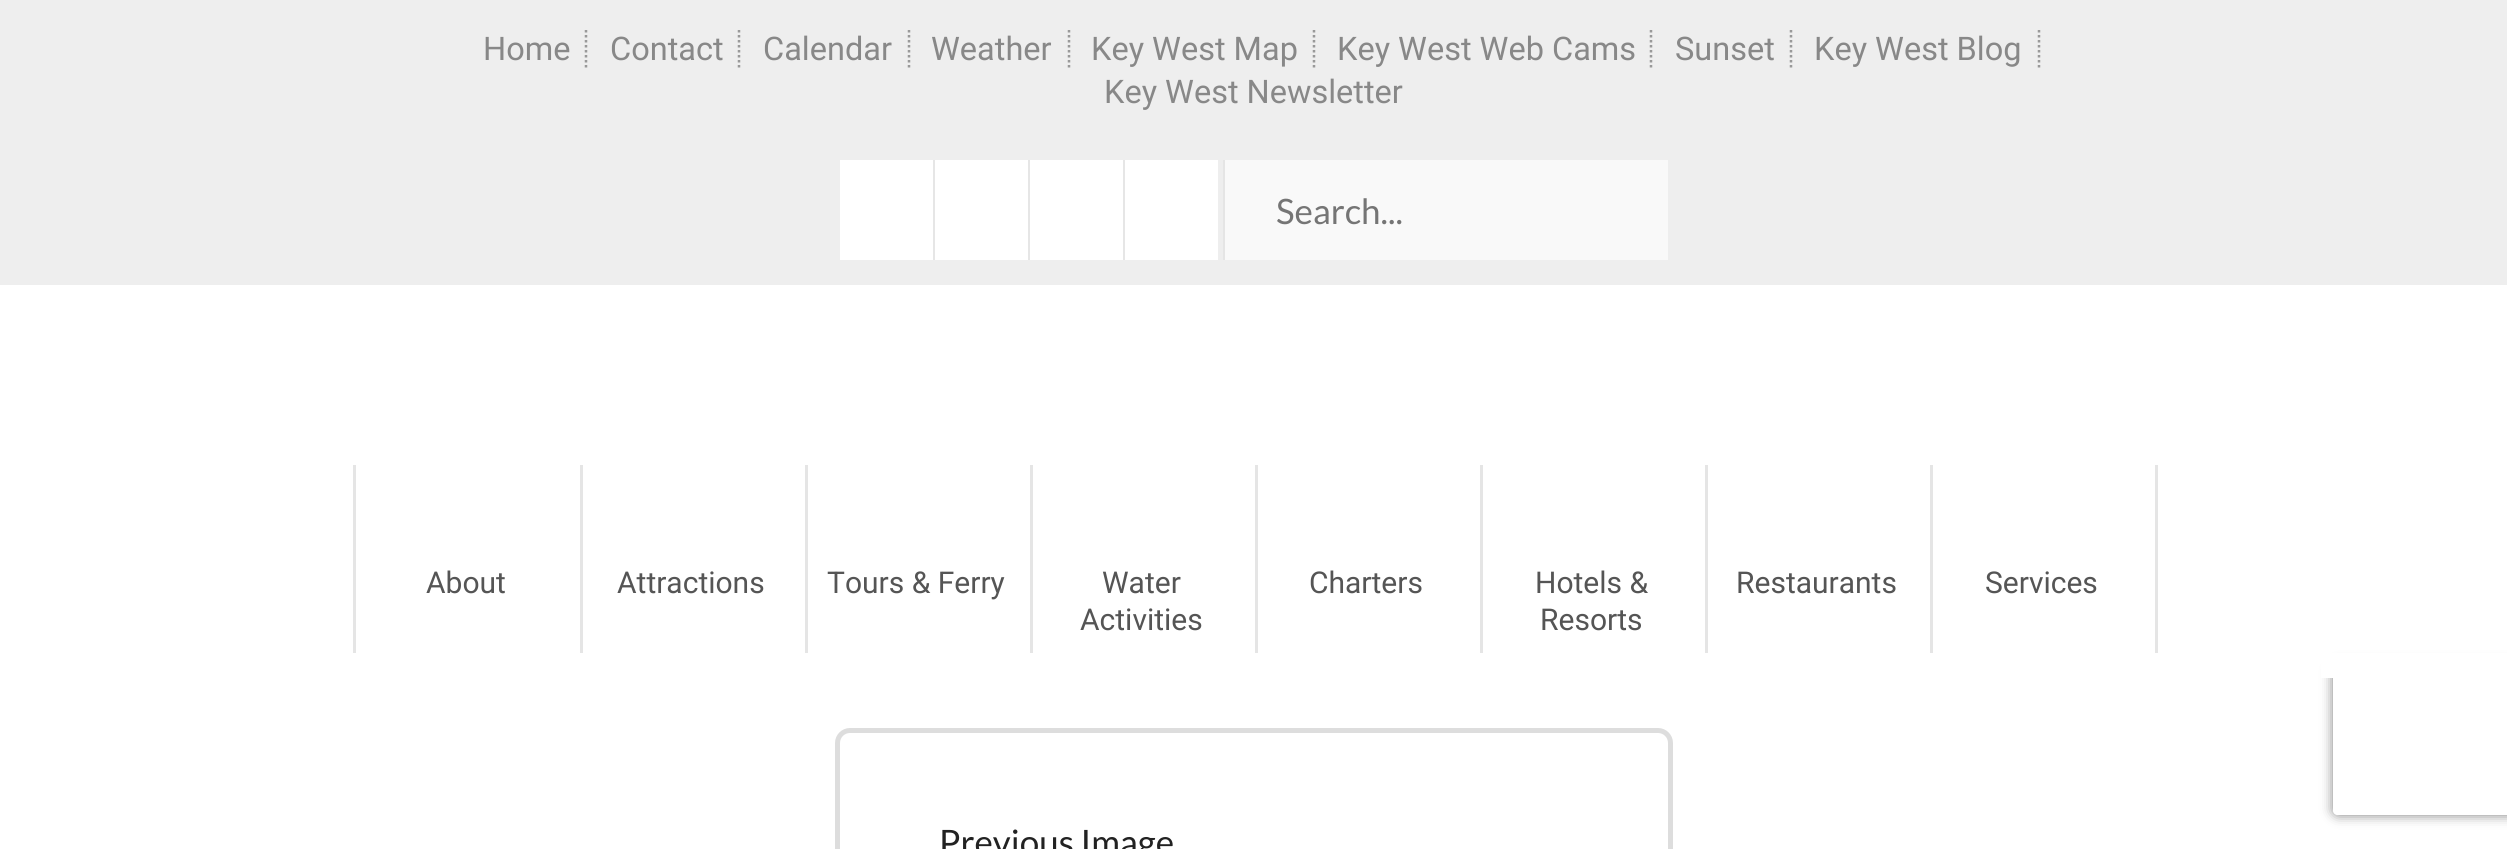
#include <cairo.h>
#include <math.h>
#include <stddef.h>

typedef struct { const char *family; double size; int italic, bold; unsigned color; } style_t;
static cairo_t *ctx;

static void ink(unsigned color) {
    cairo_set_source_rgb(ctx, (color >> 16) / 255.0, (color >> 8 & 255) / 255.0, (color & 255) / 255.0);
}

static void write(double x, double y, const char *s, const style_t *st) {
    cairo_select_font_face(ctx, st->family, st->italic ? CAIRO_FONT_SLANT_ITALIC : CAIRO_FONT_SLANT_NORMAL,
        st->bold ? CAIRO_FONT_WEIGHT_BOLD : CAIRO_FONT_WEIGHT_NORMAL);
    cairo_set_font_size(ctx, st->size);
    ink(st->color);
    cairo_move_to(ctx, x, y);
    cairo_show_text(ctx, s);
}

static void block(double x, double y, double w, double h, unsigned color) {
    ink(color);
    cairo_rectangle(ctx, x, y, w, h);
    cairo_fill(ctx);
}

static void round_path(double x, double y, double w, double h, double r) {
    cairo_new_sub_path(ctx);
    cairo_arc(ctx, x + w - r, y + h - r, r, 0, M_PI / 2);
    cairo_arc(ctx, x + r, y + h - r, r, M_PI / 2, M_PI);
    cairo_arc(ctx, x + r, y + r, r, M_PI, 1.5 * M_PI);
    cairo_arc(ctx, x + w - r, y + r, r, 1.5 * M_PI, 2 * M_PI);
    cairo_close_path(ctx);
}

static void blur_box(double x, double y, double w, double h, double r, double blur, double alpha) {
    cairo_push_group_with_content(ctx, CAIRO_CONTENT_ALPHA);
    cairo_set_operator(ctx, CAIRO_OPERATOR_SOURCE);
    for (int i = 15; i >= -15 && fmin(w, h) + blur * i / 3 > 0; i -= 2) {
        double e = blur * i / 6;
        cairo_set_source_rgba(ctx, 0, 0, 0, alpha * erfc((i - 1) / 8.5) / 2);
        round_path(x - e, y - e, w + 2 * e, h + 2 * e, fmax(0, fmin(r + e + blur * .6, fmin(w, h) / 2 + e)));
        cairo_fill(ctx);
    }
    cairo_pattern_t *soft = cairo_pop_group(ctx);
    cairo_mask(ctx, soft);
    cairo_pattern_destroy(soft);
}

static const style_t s1 = {"Roboto", 32.5, 0, 0, 0x888888};
static const style_t s2 = {"Lato", 35, 0, 0, 0x757575};
static const style_t s3 = {"Roboto", 30, 0, 0, 0x555555};
static const style_t s4 = {"Lato", 35, 0, 0, 0x222222};

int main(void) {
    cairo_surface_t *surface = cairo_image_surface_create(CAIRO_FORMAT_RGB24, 2507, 849);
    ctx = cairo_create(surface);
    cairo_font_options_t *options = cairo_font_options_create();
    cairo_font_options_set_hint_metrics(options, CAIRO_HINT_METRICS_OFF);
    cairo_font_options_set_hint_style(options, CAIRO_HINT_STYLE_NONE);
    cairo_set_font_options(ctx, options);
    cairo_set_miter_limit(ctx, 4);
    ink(0xffffff);
    cairo_paint(ctx);
    block(0, 0, 2507, 285, 0xeeeeee);
    cairo_new_path(ctx);
    cairo_move_to(ctx, 586, 30);
    cairo_line_to(ctx, 586, 67.5);
    ink(0x999999);
    cairo_set_line_width(ctx, 2.5);
    cairo_set_dash(ctx, (double[]){2.5, 2.5}, 2, 0);
    cairo_stroke(ctx);
    write(483, 60, "Home", &s1);
    cairo_new_path(ctx);
    cairo_move_to(ctx, 739, 30);
    cairo_line_to(ctx, 739, 67.5);
    ink(0x999999);
    cairo_stroke(ctx);
    write(610, 60, "Contact", &s1);
    cairo_new_path(ctx);
    cairo_move_to(ctx, 909, 30);
    cairo_line_to(ctx, 909, 67.5);
    ink(0x999999);
    cairo_stroke(ctx);
    write(763, 60, "Calendar", &s1);
    cairo_new_path(ctx);
    cairo_move_to(ctx, 1069, 30);
    cairo_line_to(ctx, 1069, 67.5);
    ink(0x999999);
    cairo_stroke(ctx);
    write(931, 60, "Weather", &s1);
    cairo_new_path(ctx);
    cairo_move_to(ctx, 1314, 30);
    cairo_line_to(ctx, 1314, 67.5);
    ink(0x999999);
    cairo_stroke(ctx);
    write(1091, 60, "Key West Map", &s1);
    cairo_new_path(ctx);
    cairo_move_to(ctx, 1651, 30);
    cairo_line_to(ctx, 1651, 67.5);
    ink(0x999999);
    cairo_stroke(ctx);
    write(1337, 60, "Key West Web Cams", &s1);
    cairo_new_path(ctx);
    cairo_move_to(ctx, 1791, 30);
    cairo_line_to(ctx, 1791, 67.5);
    ink(0x999999);
    cairo_stroke(ctx);
    write(1675, 60, "Sunset", &s1);
    cairo_new_path(ctx);
    cairo_move_to(ctx, 2039, 30);
    cairo_line_to(ctx, 2039, 67.5);
    ink(0x999999);
    cairo_stroke(ctx);
    write(1814, 60, "Key West Blog", &s1);
    write(1104, 103, "Key West Newsletter", &s1);
    block(933, 160, 2, 100, 0xe6e6e6);
    block(840, 160, 93, 100, 0xffffff);
    block(1028, 160, 2, 100, 0xe6e6e6);
    block(935, 160, 93, 100, 0xffffff);
    block(1123, 160, 2, 100, 0xe6e6e6);
    block(1030, 160, 93, 100, 0xffffff);
    block(1125, 160, 93, 100, 0xffffff);
    block(1223, 160, 2, 100, 0xe5e5e5);
    block(1225, 160, 443, 100, 0xf9f9f9);
    write(1276, 224, "Search...", &s2);
    cairo_save(ctx);
    cairo_set_fill_rule(ctx, CAIRO_FILL_RULE_EVEN_ODD);
    cairo_new_path(ctx);
    cairo_move_to(ctx, 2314, 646);
    cairo_line_to(ctx, 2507, 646);
    cairo_line_to(ctx, 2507, 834);
    cairo_line_to(ctx, 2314, 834);
    cairo_close_path(ctx);
    cairo_move_to(ctx, 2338, 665);
    cairo_line_to(ctx, 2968, 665);
    cairo_curve_to(ctx, 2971, 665, 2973, 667, 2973, 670);
    cairo_line_to(ctx, 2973, 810);
    cairo_curve_to(ctx, 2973, 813, 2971, 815, 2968, 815);
    cairo_line_to(ctx, 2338, 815);
    cairo_curve_to(ctx, 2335, 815, 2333, 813, 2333, 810);
    cairo_line_to(ctx, 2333, 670);
    cairo_curve_to(ctx, 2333, 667, 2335, 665, 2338, 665);
    cairo_close_path(ctx);
    cairo_clip(ctx);
    ink(0x808080);
    blur_box(2333, 665, 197, 150, 5, 6, 1);
    cairo_restore(ctx);
    block(2321, 653, 186, 25, 0xffffff);
    block(353, 465, 3, 188, 0xe5e5e5);
    write(426, 593, "About", &s3);
    block(580, 465, 3, 188, 0xe5e5e5);
    write(617, 593, "Attractions", &s3);
    block(805, 465, 3, 188, 0xe5e5e5);
    write(827, 593, "Tours & Ferry", &s3);
    block(1030, 465, 3, 188, 0xe5e5e5);
    write(1102, 593, "Water", &s3);
    block(1255, 465, 3, 188, 0xe5e5e5);
    write(1080, 630, "Activities", &s3);
    write(1309, 593, "Charters", &s3);
    block(1480, 465, 3, 188, 0xe5e5e5);
    write(1535, 593, "Hotels &", &s3);
    block(1705, 465, 3, 188, 0xe5e5e5);
    write(1540, 630, "Resorts", &s3);
    write(1736, 593, "Restaurants", &s3);
    block(1930, 465, 3, 188, 0xe5e5e5);
    write(1985, 593, "Services", &s3);
    block(2155, 465, 3, 188, 0xe5e5e5);
    round_path(837.5, 730.5, 833, 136, 12.5);
    ink(0xdddddd);
    cairo_set_line_width(ctx, 5);
    cairo_set_dash(ctx, NULL, 0, 0);
    cairo_stroke(ctx);
    write(939, 855, "Previous Image", &s4);
    cairo_surface_write_to_png(surface, "screenshot.png");
    cairo_font_options_destroy(options);
    cairo_destroy(ctx);
    cairo_surface_destroy(surface);
    return 0;
}
